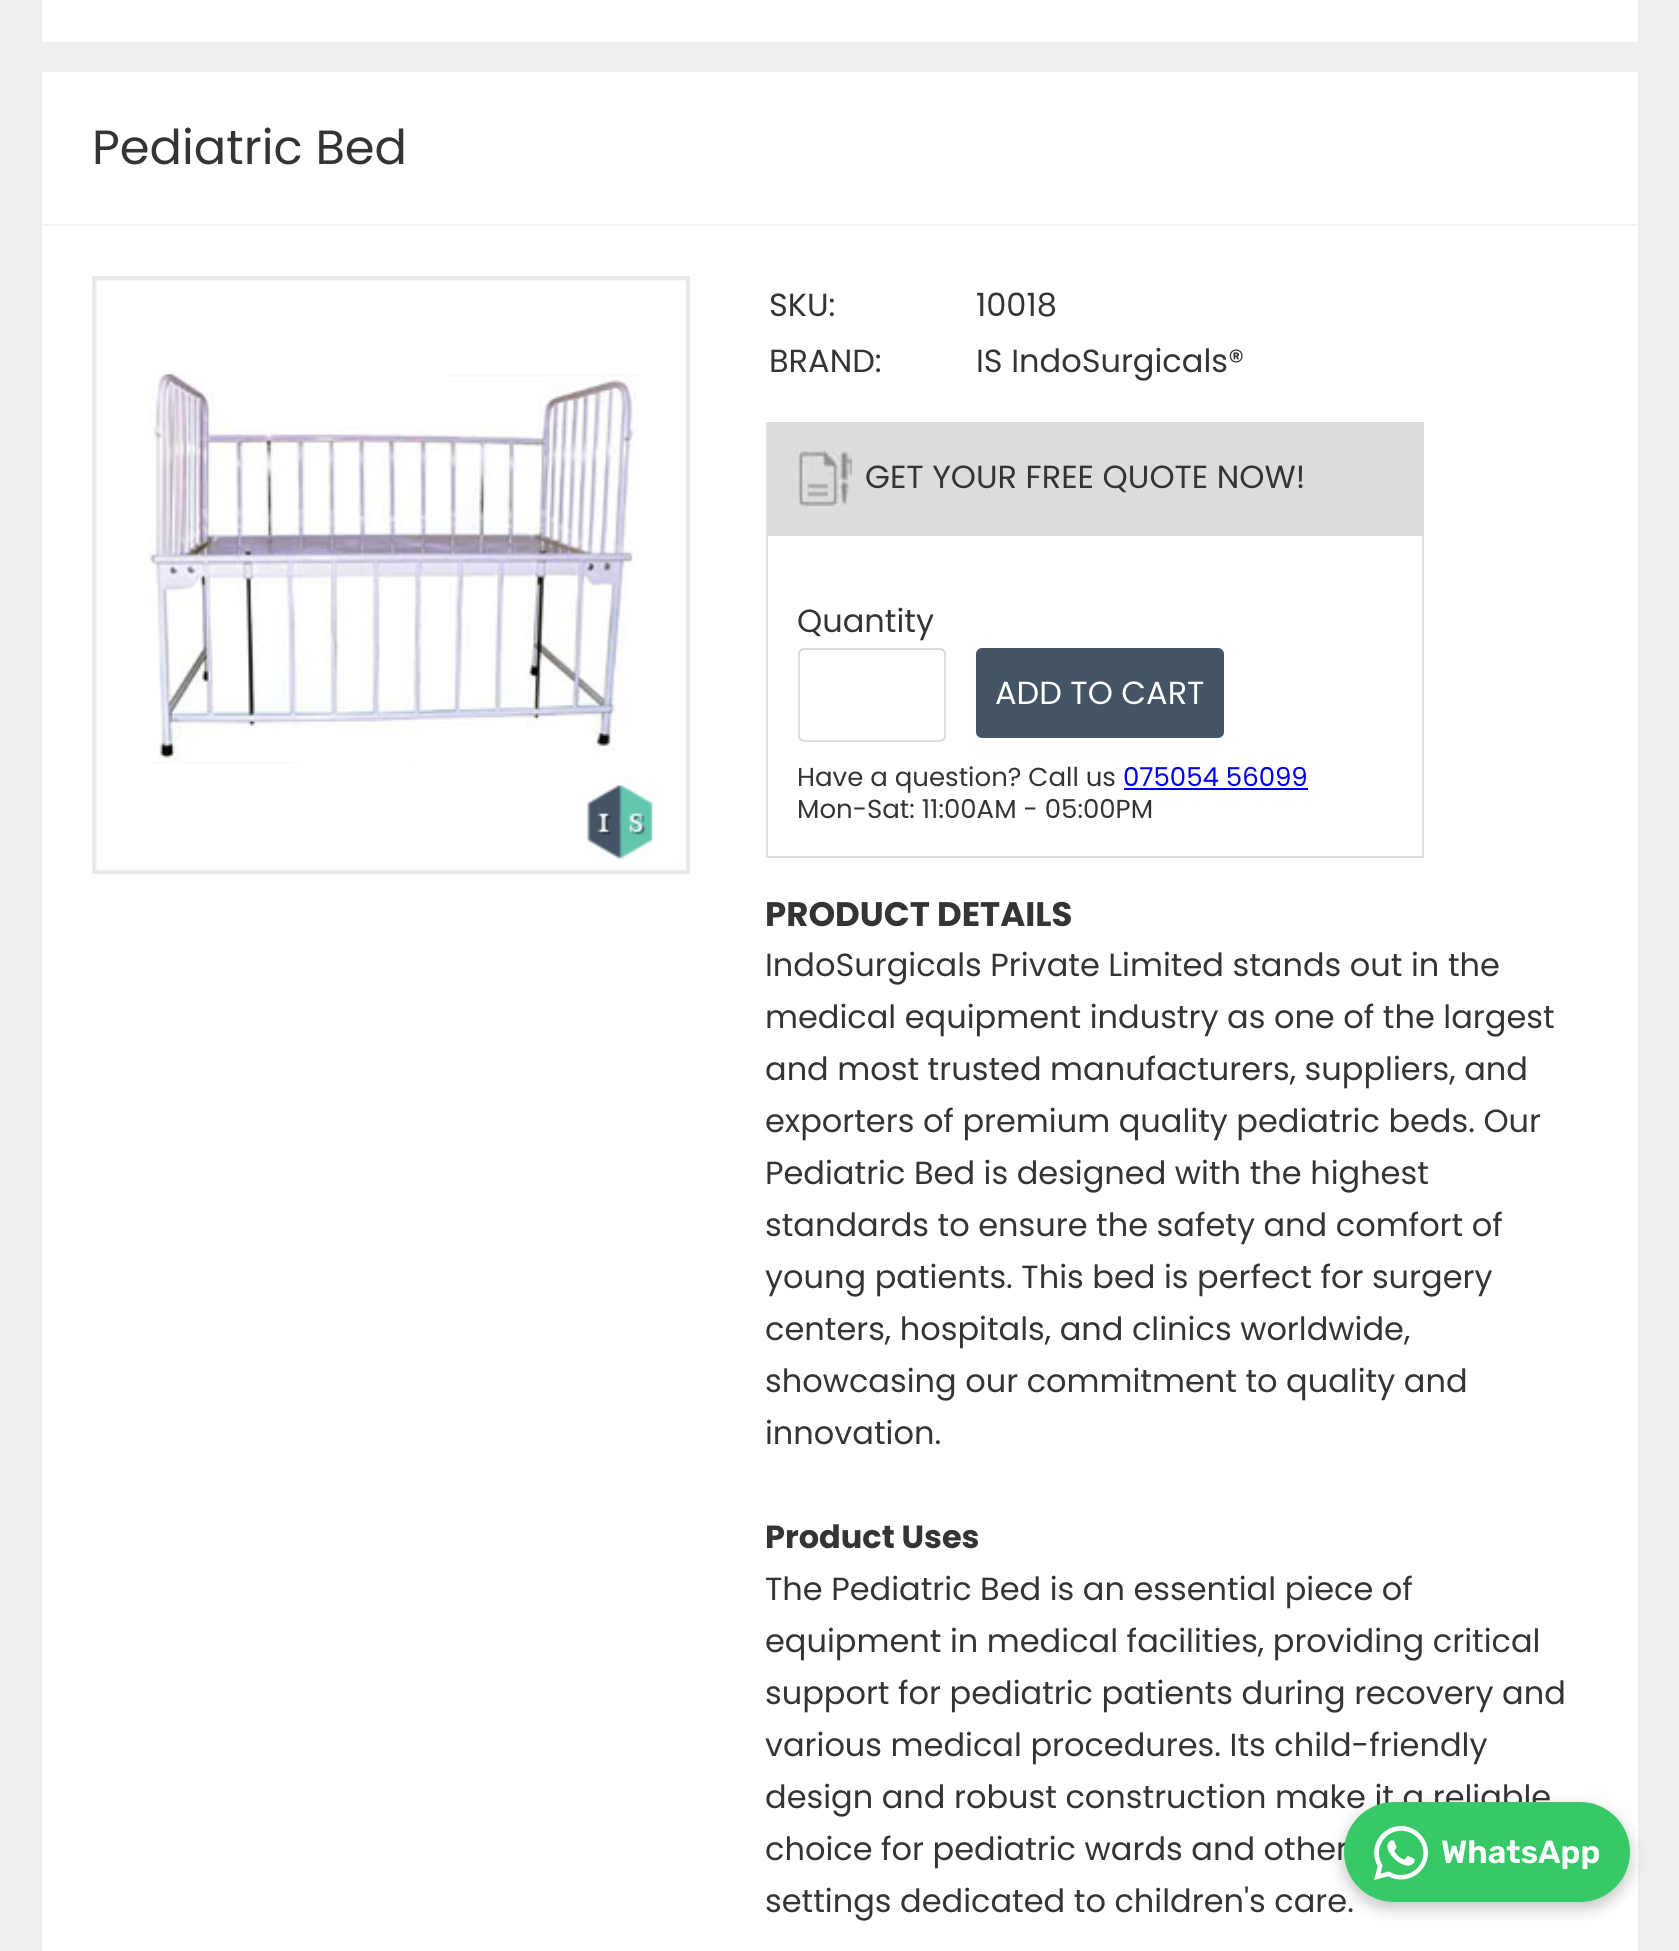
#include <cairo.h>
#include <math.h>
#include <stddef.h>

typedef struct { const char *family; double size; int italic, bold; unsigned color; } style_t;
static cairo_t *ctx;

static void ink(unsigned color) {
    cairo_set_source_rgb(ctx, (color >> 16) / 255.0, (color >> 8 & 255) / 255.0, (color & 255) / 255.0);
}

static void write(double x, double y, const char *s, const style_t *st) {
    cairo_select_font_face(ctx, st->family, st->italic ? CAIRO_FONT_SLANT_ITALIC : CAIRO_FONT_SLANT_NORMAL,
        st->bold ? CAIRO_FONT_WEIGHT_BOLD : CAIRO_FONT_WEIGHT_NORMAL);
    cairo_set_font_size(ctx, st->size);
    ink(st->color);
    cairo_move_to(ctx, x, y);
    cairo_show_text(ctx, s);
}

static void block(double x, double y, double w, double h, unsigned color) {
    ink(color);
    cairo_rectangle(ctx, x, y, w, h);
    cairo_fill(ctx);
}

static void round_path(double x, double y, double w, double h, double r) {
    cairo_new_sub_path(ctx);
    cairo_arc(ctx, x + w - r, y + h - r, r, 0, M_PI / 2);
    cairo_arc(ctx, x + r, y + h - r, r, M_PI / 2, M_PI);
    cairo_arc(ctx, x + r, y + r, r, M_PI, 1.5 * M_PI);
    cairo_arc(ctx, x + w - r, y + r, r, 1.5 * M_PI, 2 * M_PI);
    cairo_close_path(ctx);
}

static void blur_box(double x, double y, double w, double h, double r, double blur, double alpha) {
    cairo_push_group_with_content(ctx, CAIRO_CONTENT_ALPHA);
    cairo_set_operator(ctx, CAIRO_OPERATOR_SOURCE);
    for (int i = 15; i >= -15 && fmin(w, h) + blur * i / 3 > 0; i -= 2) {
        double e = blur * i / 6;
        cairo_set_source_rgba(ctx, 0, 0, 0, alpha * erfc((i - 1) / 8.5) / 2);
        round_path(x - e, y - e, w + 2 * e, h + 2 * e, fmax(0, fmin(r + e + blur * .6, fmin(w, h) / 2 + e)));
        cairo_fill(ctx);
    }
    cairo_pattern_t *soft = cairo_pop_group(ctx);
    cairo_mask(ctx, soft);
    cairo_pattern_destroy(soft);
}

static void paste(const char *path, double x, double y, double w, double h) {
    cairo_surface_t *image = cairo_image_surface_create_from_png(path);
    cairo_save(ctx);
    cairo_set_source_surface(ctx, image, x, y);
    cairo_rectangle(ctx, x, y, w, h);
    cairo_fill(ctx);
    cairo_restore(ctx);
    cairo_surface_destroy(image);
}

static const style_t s1 = {"Poppins", 48, 0, 0, 0x343434};
static const style_t s2 = {"Poppins", 32, 0, 0, 0x343434};
static const style_t s3 = {"Poppins", 32, 0, 0, 0xffffff};
static const style_t s4 = {"Poppins", 26, 0, 0, 0x343434};
static const style_t s5 = {"Poppins", 26, 0, 0, 0x0000ee};
static const style_t s6 = {"Poppins", 34, 0, 1, 0x343434};
static const style_t s7 = {"Poppins", 32, 0, 1, 0x343434};
static const style_t s8 = {"Rubik SemiBold", 32, 0, 0, 0xffffff};

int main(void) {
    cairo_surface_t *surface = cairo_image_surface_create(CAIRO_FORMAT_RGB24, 1679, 1951);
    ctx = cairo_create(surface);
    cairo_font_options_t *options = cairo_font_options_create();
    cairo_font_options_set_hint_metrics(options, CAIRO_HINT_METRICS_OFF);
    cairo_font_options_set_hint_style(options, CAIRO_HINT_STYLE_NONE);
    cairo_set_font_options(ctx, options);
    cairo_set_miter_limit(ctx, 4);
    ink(0xefefef);
    cairo_paint(ctx);
    block(42, 0, 1596, 42, 0xffffff);
    block(42, 72, 1596, 1879, 0xffffff);
    block(42, 224, 1596, 2, 0xf1f3f6);
    write(92, 164, "Pediatric Bed", &s1);
    cairo_rectangle(ctx, 93, 277, 596, 596);
    ink(0xe8e8ea);
    cairo_stroke(ctx);
    paste("pic1.png", 94, 278, 594, 594);
    write(769, 316, "SKU:", &s2);
    write(976, 316, "10018", &s2);
    write(769, 372, "BRAND:", &s2);
    write(976, 372, "IS IndoSurgicals®", &s2);
    block(766, 422, 658, 112, 0xdcdcdc);
    paste("pic2.png", 796, 450, 56, 56);
    write(865, 488, "GET YOUR FREE QUOTE NOW!", &s2);
    cairo_rectangle(ctx, 767, 535, 656, 322);
    ink(0xdcdcdc);
    cairo_stroke(ctx);
    write(797, 632, "Quantity", &s2);
    round_path(799, 649, 146, 92, 5);
    ink(0xdcdcdc);
    cairo_stroke(ctx);
    ink(0x435466);
    round_path(976, 648, 248, 90, 6);
    cairo_fill(ctx);
    write(995, 704, "ADD TO CART", &s3);
    write(797, 786, "Have a question? Call us", &s4);
    write(1123, 786, "075054 56099", &s5);
    block(1124, 788, 184, 2, 0x0000ee);
    write(797, 818, "Mon-Sat: 11:00AM - 05:00PM", &s4);
    write(765, 926, "PRODUCT DETAILS", &s6);
    write(765, 976, "IndoSurgicals Private Limited stands out in the", &s2);
    write(765, 1028, "medical equipment industry as one of the largest", &s2);
    write(765, 1080, "and most trusted manufacturers, suppliers, and", &s2);
    write(765, 1132, "exporters of premium quality pediatric beds. Our", &s2);
    write(765, 1184, "Pediatric Bed is designed with the highest", &s2);
    write(765, 1236, "standards to ensure the safety and comfort of", &s2);
    write(765, 1288, "young patients. This bed is perfect for surgery", &s2);
    write(765, 1340, "centers, hospitals, and clinics worldwide,", &s2);
    write(765, 1392, "showcasing our commitment to quality and", &s2);
    write(765, 1444, "innovation.", &s2);
    write(765, 1548, "Product Uses", &s7);
    write(765, 1600, "The Pediatric Bed is an essential piece of", &s2);
    write(765, 1652, "equipment in medical facilities, providing critical", &s2);
    write(765, 1704, "support for pediatric patients during recovery and", &s2);
    write(765, 1756, "various medical procedures. Its child-friendly", &s2);
    write(765, 1808, "design and robust construction make it a reliable", &s2);
    write(765, 1860, "choice for pediatric wards and other", &s2);
    write(765, 1912, "settings dedicated to children's care.", &s2);
    ink(0x000000);
    blur_box(1344, 1808, 286, 100, 50, 8, 0.24);
    ink(0x37c968);
    round_path(1344, 1802, 286, 100, 50);
    cairo_fill(ctx);
    paste("pic3.png", 1374, 1826, 54, 54);
    write(1441, 1863, "WhatsApp", &s8);
    cairo_surface_write_to_png(surface, "screenshot.png");
    cairo_font_options_destroy(options);
    cairo_destroy(ctx);
    cairo_surface_destroy(surface);
    return 0;
}
